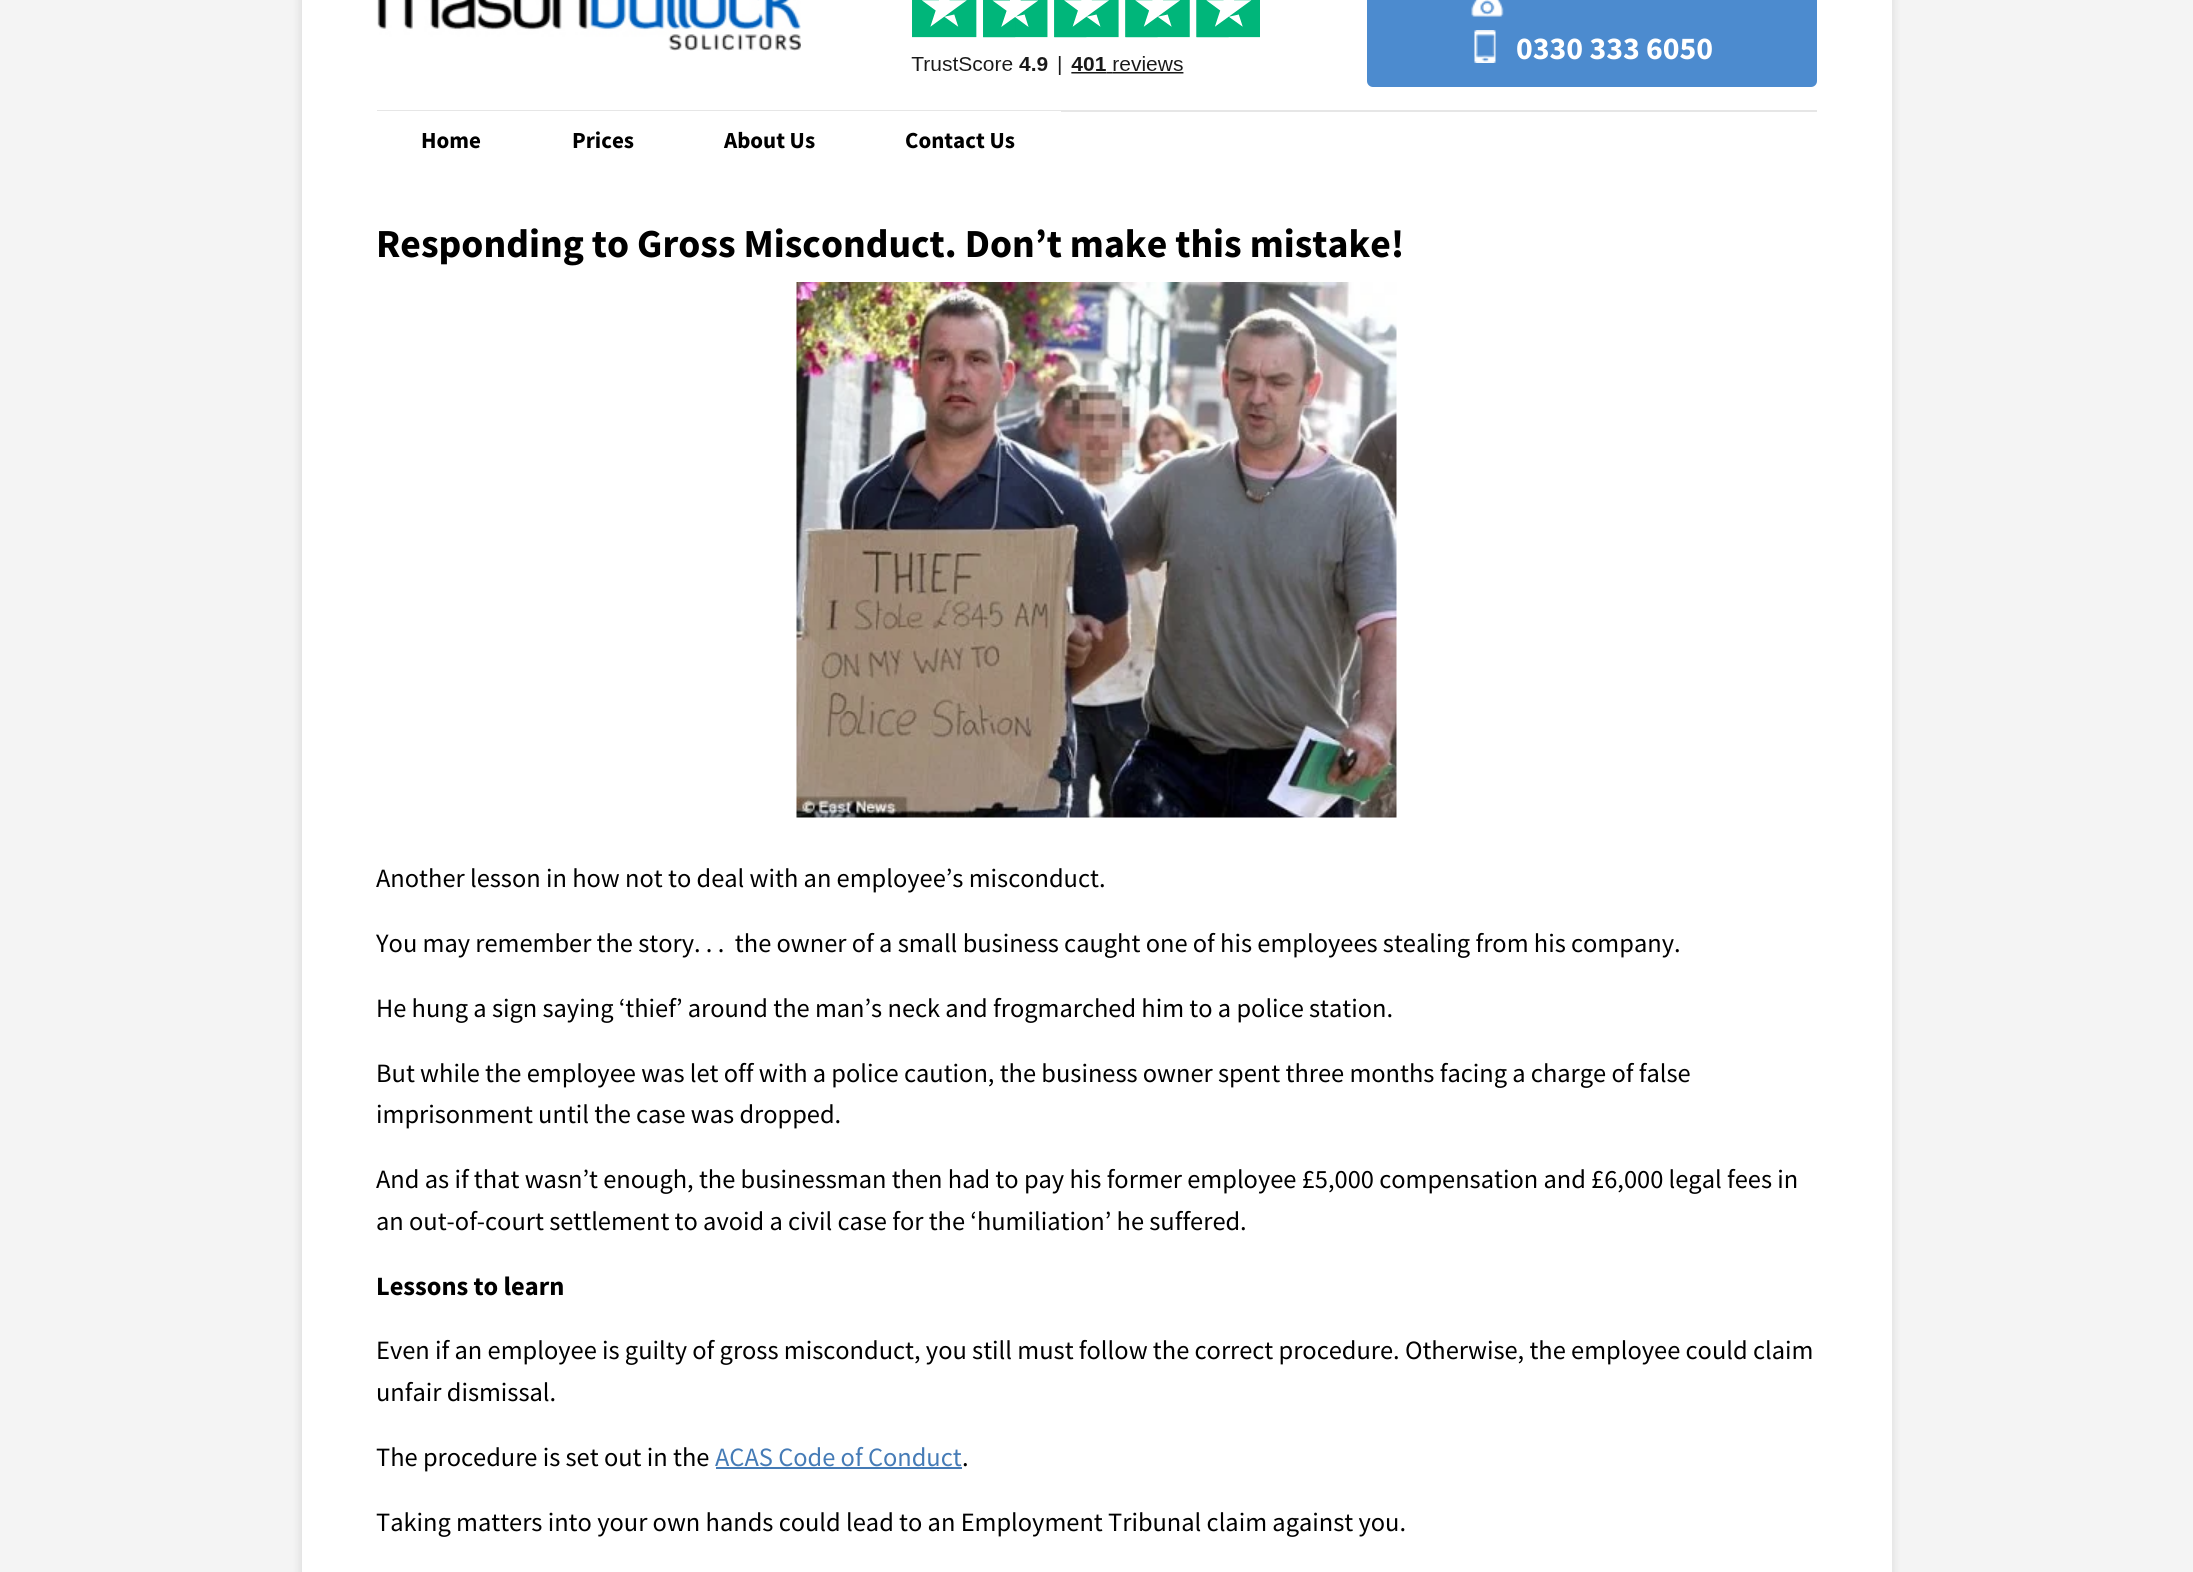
#include <cairo.h>
#include <math.h>
#include <stddef.h>

typedef struct { const char *family; double size; int italic, bold; unsigned color; } style_t;
static cairo_t *ctx;

static void ink(unsigned color) {
    cairo_set_source_rgb(ctx, (color >> 16) / 255.0, (color >> 8 & 255) / 255.0, (color & 255) / 255.0);
}

static void write(double x, double y, const char *s, const style_t *st) {
    cairo_select_font_face(ctx, st->family, st->italic ? CAIRO_FONT_SLANT_ITALIC : CAIRO_FONT_SLANT_NORMAL,
        st->bold ? CAIRO_FONT_WEIGHT_BOLD : CAIRO_FONT_WEIGHT_NORMAL);
    cairo_set_font_size(ctx, st->size);
    ink(st->color);
    cairo_move_to(ctx, x, y);
    cairo_show_text(ctx, s);
}

static void block(double x, double y, double w, double h, unsigned color) {
    ink(color);
    cairo_rectangle(ctx, x, y, w, h);
    cairo_fill(ctx);
}

static void round_path(double x, double y, double w, double h, double r) {
    cairo_new_sub_path(ctx);
    cairo_arc(ctx, x + w - r, y + h - r, r, 0, M_PI / 2);
    cairo_arc(ctx, x + r, y + h - r, r, M_PI / 2, M_PI);
    cairo_arc(ctx, x + r, y + r, r, M_PI, 1.5 * M_PI);
    cairo_arc(ctx, x + w - r, y + r, r, 1.5 * M_PI, 2 * M_PI);
    cairo_close_path(ctx);
}

static void blur_box(double x, double y, double w, double h, double r, double blur, double alpha) {
    cairo_push_group_with_content(ctx, CAIRO_CONTENT_ALPHA);
    cairo_set_operator(ctx, CAIRO_OPERATOR_SOURCE);
    for (int i = 15; i >= -15 && fmin(w, h) + blur * i / 3 > 0; i -= 2) {
        double e = blur * i / 6;
        cairo_set_source_rgba(ctx, 0, 0, 0, alpha * erfc((i - 1) / 8.5) / 2);
        round_path(x - e, y - e, w + 2 * e, h + 2 * e, fmax(0, fmin(r + e + blur * .6, fmin(w, h) / 2 + e)));
        cairo_fill(ctx);
    }
    cairo_pattern_t *soft = cairo_pop_group(ctx);
    cairo_mask(ctx, soft);
    cairo_pattern_destroy(soft);
}

static void paste(const char *path, double x, double y, double w, double h) {
    cairo_surface_t *image = cairo_image_surface_create_from_png(path);
    cairo_save(ctx);
    cairo_set_source_surface(ctx, image, x, y);
    cairo_rectangle(ctx, x, y, w, h);
    cairo_fill(ctx);
    cairo_restore(ctx);
    cairo_surface_destroy(image);
}

static const style_t s1 = {"Source Sans Pro", 31.75, 0, 1, 0xffffff};
static const style_t s2 = {"Source Sans Pro", 23, 0, 1, 0x000000};
static const style_t s3 = {"Source Sans Pro", 39.75, 0, 1, 0x000000};
static const style_t s4 = {"Source Sans Pro", 26.4, 0, 0, 0x000000};
static const style_t s5 = {"Source Sans Pro", 26.4, 0, 1, 0x000000};
static const style_t s6 = {"Source Sans Pro", 26.4, 0, 0, 0x457bb6};

int main(void) {
    cairo_surface_t *surface = cairo_image_surface_create(CAIRO_FORMAT_RGB24, 2193, 1572);
    ctx = cairo_create(surface);
    cairo_font_options_t *options = cairo_font_options_create();
    cairo_font_options_set_hint_metrics(options, CAIRO_HINT_METRICS_OFF);
    cairo_font_options_set_hint_style(options, CAIRO_HINT_STYLE_NONE);
    cairo_set_font_options(ctx, options);
    cairo_set_miter_limit(ctx, 4);
    ink(0xf4f4f4);
    cairo_paint(ctx);
    ink(0x000000);
    blur_box(300, -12, 1593, 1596, 0, 4, 0.1);
    block(302, 0, 1590, 1572, 0xffffff);
    block(377, 110, 1440, 2, 0xe6e6e6);
    paste("pic1.png", 377, 0, 424, 51);
    paste("pic2.png", 911, 0, 349, 75);
    ink(0x4c8bcf);
    round_path(1367, -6, 450, 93, 6);
    cairo_fill(ctx);
    paste("pic3.png", 1471, 0, 33, 17);
    paste("pic4.png", 1474, 30, 22, 33);
    write(1516, 59, "0330 333 6050", &s1);
    block(377, 111, 684, 1, 0xffffff);
    write(421, 148, "Home", &s2);
    write(572, 148, "Prices", &s2);
    write(724, 148, "About Us", &s2);
    write(905, 148, "Contact Us", &s2);
    write(376, 257, "Responding to Gross Misconduct. Don’t make this mistake!", &s3);
    paste("pic5.png", 796, 282, 601, 536);
    write(376, 887, "Another lesson in how not to deal with an employee’s misconduct.", &s4);
    write(376, 952, "You may remember the story. . .  the owner of a small business caught one of his employees stealing from his company.", &s4);
    write(376, 1017, "He hung a sign saying ‘thief’ around the man’s neck and frogmarched him to a police station.", &s4);
    write(376, 1082, "But while the employee was let off with a police caution, the business owner spent three months facing a charge of false", &s4);
    write(376, 1123, "imprisonment until the case was dropped.", &s4);
    write(376, 1188, "And as if that wasn’t enough, the businessman then had to pay his former employee £5,000 compensation and £6,000 legal fees in", &s4);
    write(376, 1230, "an out-of-court settlement to avoid a civil case for the ‘humiliation’ he suffered.", &s4);
    write(376, 1295, "Lessons to learn", &s5);
    write(376, 1359, "Even if an employee is guilty of gross misconduct, you still must follow the correct procedure. Otherwise, the employee could claim", &s4);
    write(376, 1401, "unfair dismissal.", &s4);
    write(376, 1466, "The procedure is set out in the", &s4);
    write(715, 1466, "ACAS Code of Conduct", &s6);
    block(716, 1467, 246, 2, 0x457bb6);
    write(962, 1466, ".", &s4);
    write(376, 1531, "Taking matters into your own hands could lead to an Employment Tribunal claim against you.", &s4);
    cairo_surface_write_to_png(surface, "screenshot.png");
    cairo_font_options_destroy(options);
    cairo_destroy(ctx);
    cairo_surface_destroy(surface);
    return 0;
}
